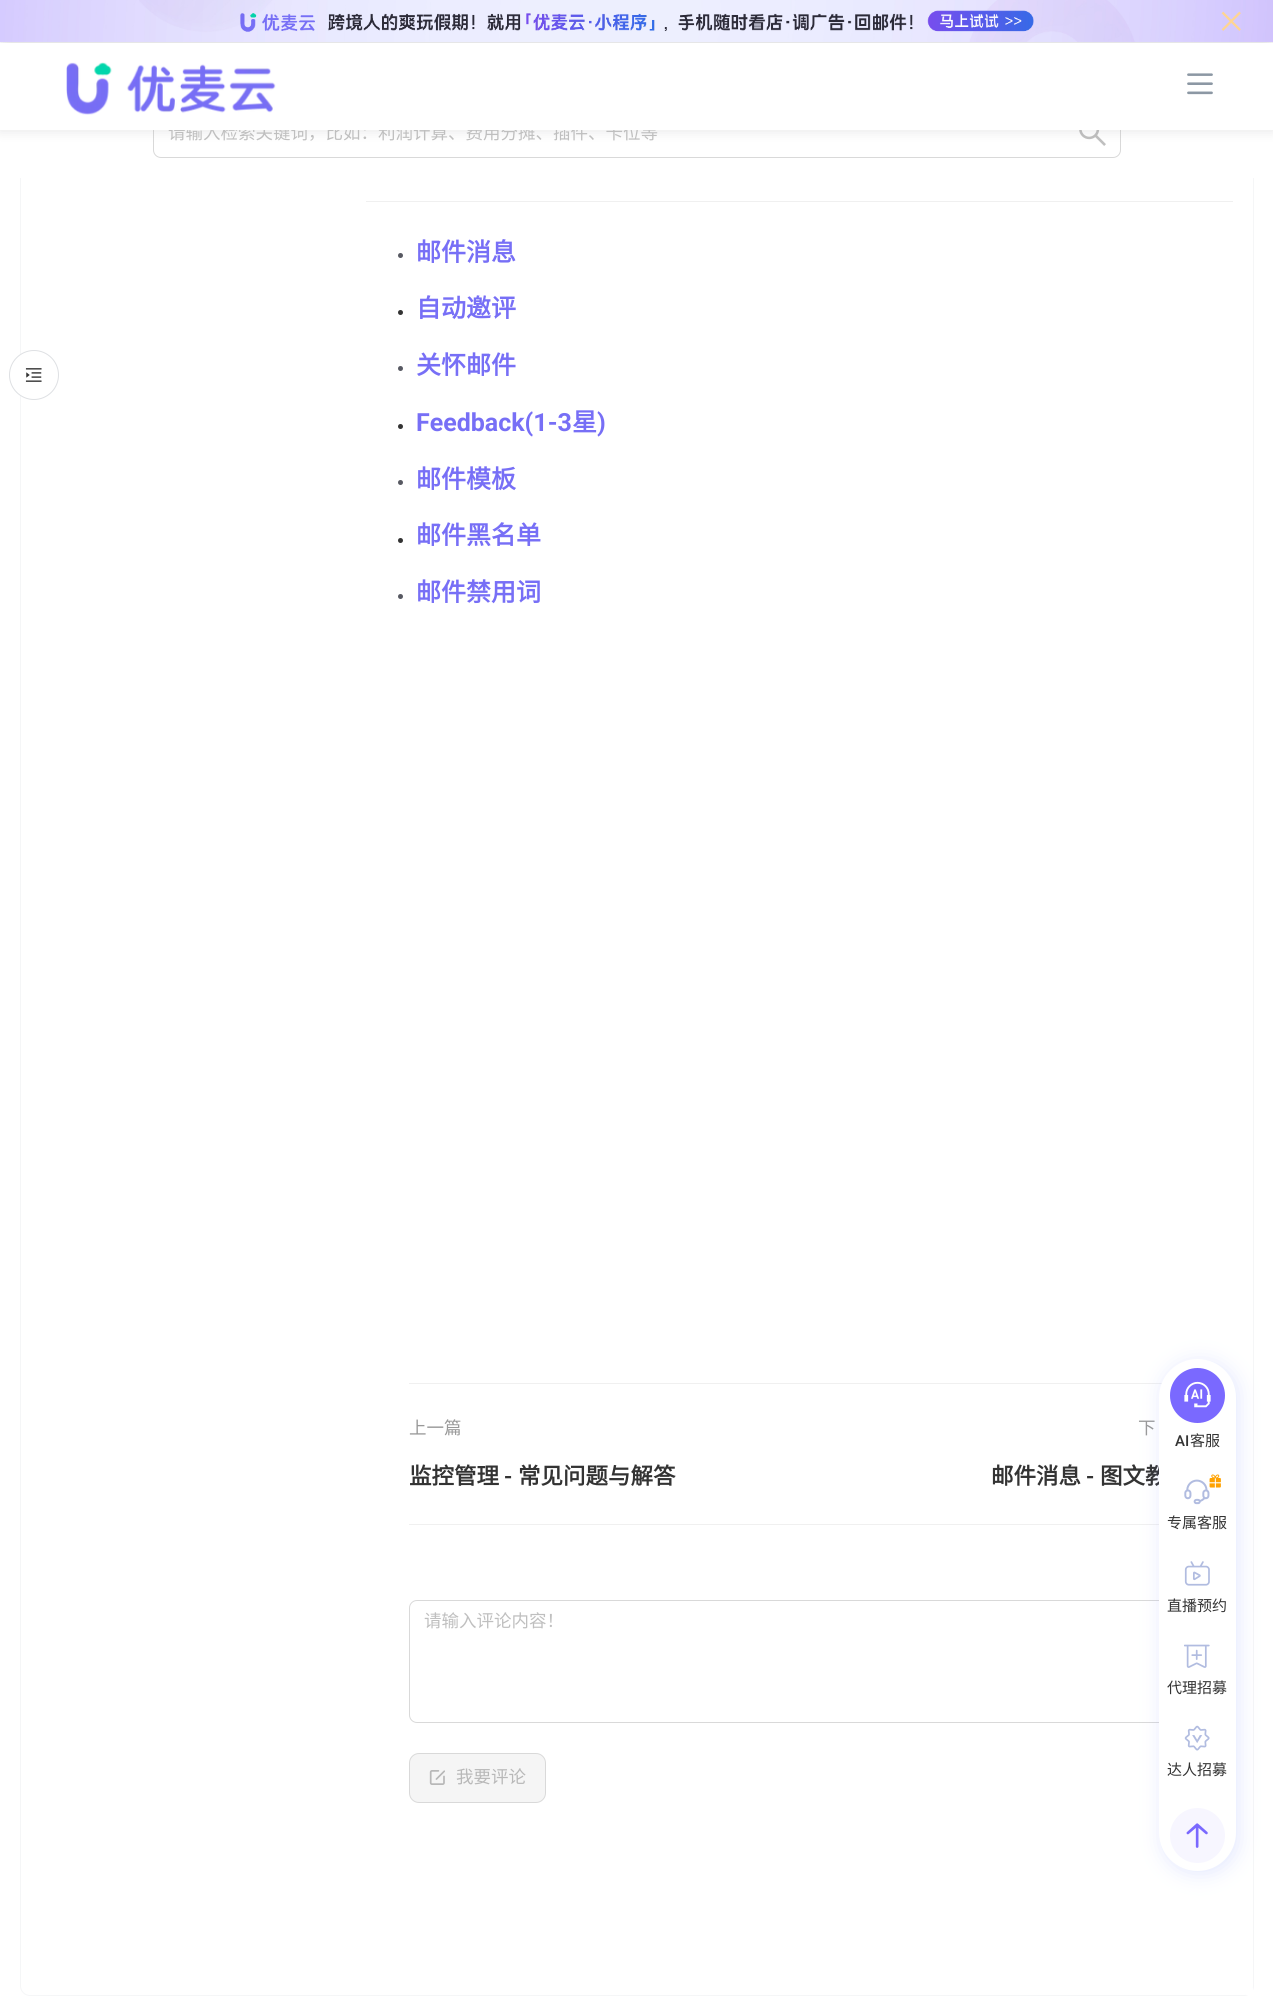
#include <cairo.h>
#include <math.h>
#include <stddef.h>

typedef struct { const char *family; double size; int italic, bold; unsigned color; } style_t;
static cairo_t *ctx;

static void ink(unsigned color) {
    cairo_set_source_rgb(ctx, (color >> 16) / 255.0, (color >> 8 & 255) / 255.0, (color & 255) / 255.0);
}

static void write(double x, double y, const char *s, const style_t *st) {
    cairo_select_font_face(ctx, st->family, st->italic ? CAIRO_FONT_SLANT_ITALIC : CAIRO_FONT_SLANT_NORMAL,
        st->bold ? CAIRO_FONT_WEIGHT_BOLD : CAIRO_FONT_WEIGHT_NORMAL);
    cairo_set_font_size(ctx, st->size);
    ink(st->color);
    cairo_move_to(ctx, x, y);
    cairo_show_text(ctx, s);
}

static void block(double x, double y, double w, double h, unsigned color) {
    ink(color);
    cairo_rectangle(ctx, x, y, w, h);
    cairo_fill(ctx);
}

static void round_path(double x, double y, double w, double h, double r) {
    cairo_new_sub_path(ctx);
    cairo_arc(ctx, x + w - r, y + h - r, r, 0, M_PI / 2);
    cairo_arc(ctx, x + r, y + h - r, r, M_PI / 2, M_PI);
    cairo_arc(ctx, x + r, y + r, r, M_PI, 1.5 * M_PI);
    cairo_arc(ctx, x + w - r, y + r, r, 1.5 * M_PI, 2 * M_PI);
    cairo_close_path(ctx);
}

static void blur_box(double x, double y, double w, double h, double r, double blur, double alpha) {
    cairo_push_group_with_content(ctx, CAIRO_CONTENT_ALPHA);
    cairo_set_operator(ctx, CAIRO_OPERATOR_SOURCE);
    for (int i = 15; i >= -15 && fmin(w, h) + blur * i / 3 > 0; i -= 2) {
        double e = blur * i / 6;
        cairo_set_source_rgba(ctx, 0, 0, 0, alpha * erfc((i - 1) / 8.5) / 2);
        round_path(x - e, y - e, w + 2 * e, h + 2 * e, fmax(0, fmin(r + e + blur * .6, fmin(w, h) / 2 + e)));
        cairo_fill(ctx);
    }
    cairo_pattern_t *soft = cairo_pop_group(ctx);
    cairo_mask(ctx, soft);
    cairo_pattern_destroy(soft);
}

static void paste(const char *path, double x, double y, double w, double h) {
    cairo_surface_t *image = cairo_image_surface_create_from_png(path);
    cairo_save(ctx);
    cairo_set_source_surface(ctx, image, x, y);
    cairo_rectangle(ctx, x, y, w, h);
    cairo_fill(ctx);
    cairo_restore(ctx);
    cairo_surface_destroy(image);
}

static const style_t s1 = {"Noto Sans CJK SC", 17.5, 0, 0, 0xbfbfbf};
static const style_t s2 = {"Noto Sans CJK SC", 25, 0, 1, 0x776ff6};
static const style_t s3 = {"Roboto", 25, 0, 1, 0x776ff6};
static const style_t s4 = {"Noto Sans CJK SC", 17.5, 0, 0, 0x999999};
static const style_t s5 = {"Noto Sans CJK SC", 22.5, 0, 1, 0x333333};
static const style_t s6 = {"Roboto SemiBold", 22.5, 0, 0, 0x333333};
static const style_t s7 = {"Noto Sans CJK SC", 17.5, 0, 0, 0xb8b8b8};
static const style_t s8 = {"Roboto Medium", 15, 0, 0, 0x333333};
static const style_t s9 = {"Noto Sans CJK SC", 15, 0, 0, 0x333333};

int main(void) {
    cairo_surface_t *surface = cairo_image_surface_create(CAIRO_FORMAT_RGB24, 1273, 1996);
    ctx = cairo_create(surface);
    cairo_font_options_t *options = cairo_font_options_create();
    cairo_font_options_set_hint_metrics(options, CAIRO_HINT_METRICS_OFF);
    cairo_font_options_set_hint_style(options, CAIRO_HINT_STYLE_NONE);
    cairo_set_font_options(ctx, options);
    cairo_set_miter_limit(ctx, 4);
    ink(0xffffff);
    cairo_paint(ctx);
    round_path(20.5, 71.5, 1233, 1924, 9.5);
    ink(0xf5f6f7);
    cairo_set_line_width(ctx, 1);
    cairo_stroke(ctx);
    block(20, 130, 1234, 48, 0xffffff);
    round_path(153.5, 108.5, 967, 49, 7.5);
    ink(0xd9d9d9);
    cairo_stroke(ctx);
    paste("pic5.png", 1079, 130, 27, 16);
    ink(0x828287);
    blur_box(0, 1, 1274, 130, 0, 6, 0.2);
    paste("pic1.png", 0, 0, 1273, 42);
    paste("pic2.png", 1221, 11, 20, 20);
    write(168, 139, "请输入检索关键词，比如：利润计算、费用分摊、插件、卡位等", &s1);
    block(0, 43, 1273, 87, 0xffffff);
    paste("pic3.png", 66, 62, 210, 53);
    paste("pic4.png", 1187, 73, 26, 22);
    cairo_arc(ctx, 34, 375, 24.5, 0, 2 * M_PI);
    cairo_fill_preserve(ctx);
    ink(0xdee0e3);
    cairo_stroke(ctx);
    paste("pic6.png", 25, 368, 17, 14);
    block(1246, 1988, 7, 7, 0xffffff);
    block(366, 201, 867, 1, 0xf0f0f0);
    ink(0x575962);
    cairo_arc(ctx, 400.5, 255.5, 2.5, 0, 2 * M_PI);
    cairo_fill(ctx);
    write(416, 261, "邮件消息", &s2);
    ink(0x333333);
    cairo_new_path(ctx);
    cairo_arc(ctx, 400.5, 312.5, 2.5, 0, 2 * M_PI);
    cairo_fill(ctx);
    write(416, 317, "自动邀评", &s2);
    ink(0x575962);
    cairo_new_path(ctx);
    cairo_arc(ctx, 400.5, 368.5, 2.5, 0, 2 * M_PI);
    cairo_fill(ctx);
    write(416, 374, "关怀邮件", &s2);
    ink(0x333333);
    cairo_new_path(ctx);
    cairo_arc(ctx, 400.5, 426.5, 2.5, 0, 2 * M_PI);
    cairo_fill(ctx);
    write(416, 431, "Feedback(1-3", &s3);
    write(572, 431, "星", &s2);
    write(597, 431, ")", &s3);
    ink(0x575962);
    cairo_new_path(ctx);
    cairo_arc(ctx, 400.5, 482.5, 2.5, 0, 2 * M_PI);
    cairo_fill(ctx);
    write(416, 488, "邮件模板", &s2);
    ink(0x333333);
    cairo_new_path(ctx);
    cairo_arc(ctx, 400.5, 540.5, 2.5, 0, 2 * M_PI);
    cairo_fill(ctx);
    write(416, 544, "邮件黑名单", &s2);
    ink(0x575962);
    cairo_new_path(ctx);
    cairo_arc(ctx, 400.5, 596.5, 2.5, 0, 2 * M_PI);
    cairo_fill(ctx);
    write(416, 601, "邮件禁用词", &s2);
    block(409, 1383, 753, 1, 0xf0f0f0);
    write(409, 1434, "上一篇", &s4);
    write(409, 1484, "监控管理", &s5);
    write(504, 1484, "-", &s6);
    write(518, 1484, "常见问题与解答", &s5);
    write(1138, 1434, "下", &s4);
    write(991, 1484, "邮件消息", &s5);
    write(1086, 1484, "-", &s6);
    write(1100, 1484, "图文教", &s5);
    block(409, 1524, 750, 1, 0xf0f0f0);
    round_path(409.5, 1600.5, 780, 122, 7.5);
    ink(0xd9d9d9);
    cairo_stroke(ctx);
    write(424, 1627, "请输入评论内容！", &s1);
    ink(0xf5f5f5);
    round_path(409.5, 1753.5, 136, 49, 9.5);
    cairo_fill_preserve(ctx);
    ink(0xd9d9d9);
    cairo_stroke(ctx);
    paste("pic7.png", 429, 1770, 16, 15);
    write(456, 1783, "我要评论", &s7);
    ink(0x7a93ff);
    blur_box(1161, 1361, 78, 513, 39, 10, 0.2);
    ink(0xffffff);
    round_path(1159, 1359, 77, 512, 38.5);
    cairo_fill(ctx);
    ink(0x7a69ff);
    cairo_arc(ctx, 1197.5, 1395.5, 27.5, 0, 2 * M_PI);
    cairo_fill(ctx);
    paste("pic8.png", 1184, 1381, 27, 27);
    write(1175, 1446, "AI", &s8);
    write(1190, 1446, "客服", &s9);
    paste("pic9.png", 1184, 1479, 26, 26);
    paste("pic10.png", 1209, 1474, 12, 14);
    write(1167, 1528, "专属客服", &s9);
    paste("pic11.png", 1184, 1561, 26, 25);
    write(1167, 1611, "直播预约", &s9);
    paste("pic12.png", 1184, 1644, 26, 24);
    write(1167, 1693, "代理招募", &s9);
    paste("pic13.png", 1184, 1725, 26, 26);
    write(1167, 1775, "达人招募", &s9);
    ink(0xf7f6ff);
    cairo_new_path(ctx);
    cairo_arc(ctx, 1197.5, 1835.5, 27.5, 0, 2 * M_PI);
    cairo_fill(ctx);
    paste("pic14.png", 1186, 1823, 22, 25);
    cairo_surface_write_to_png(surface, "screenshot.png");
    cairo_font_options_destroy(options);
    cairo_destroy(ctx);
    cairo_surface_destroy(surface);
    return 0;
}
